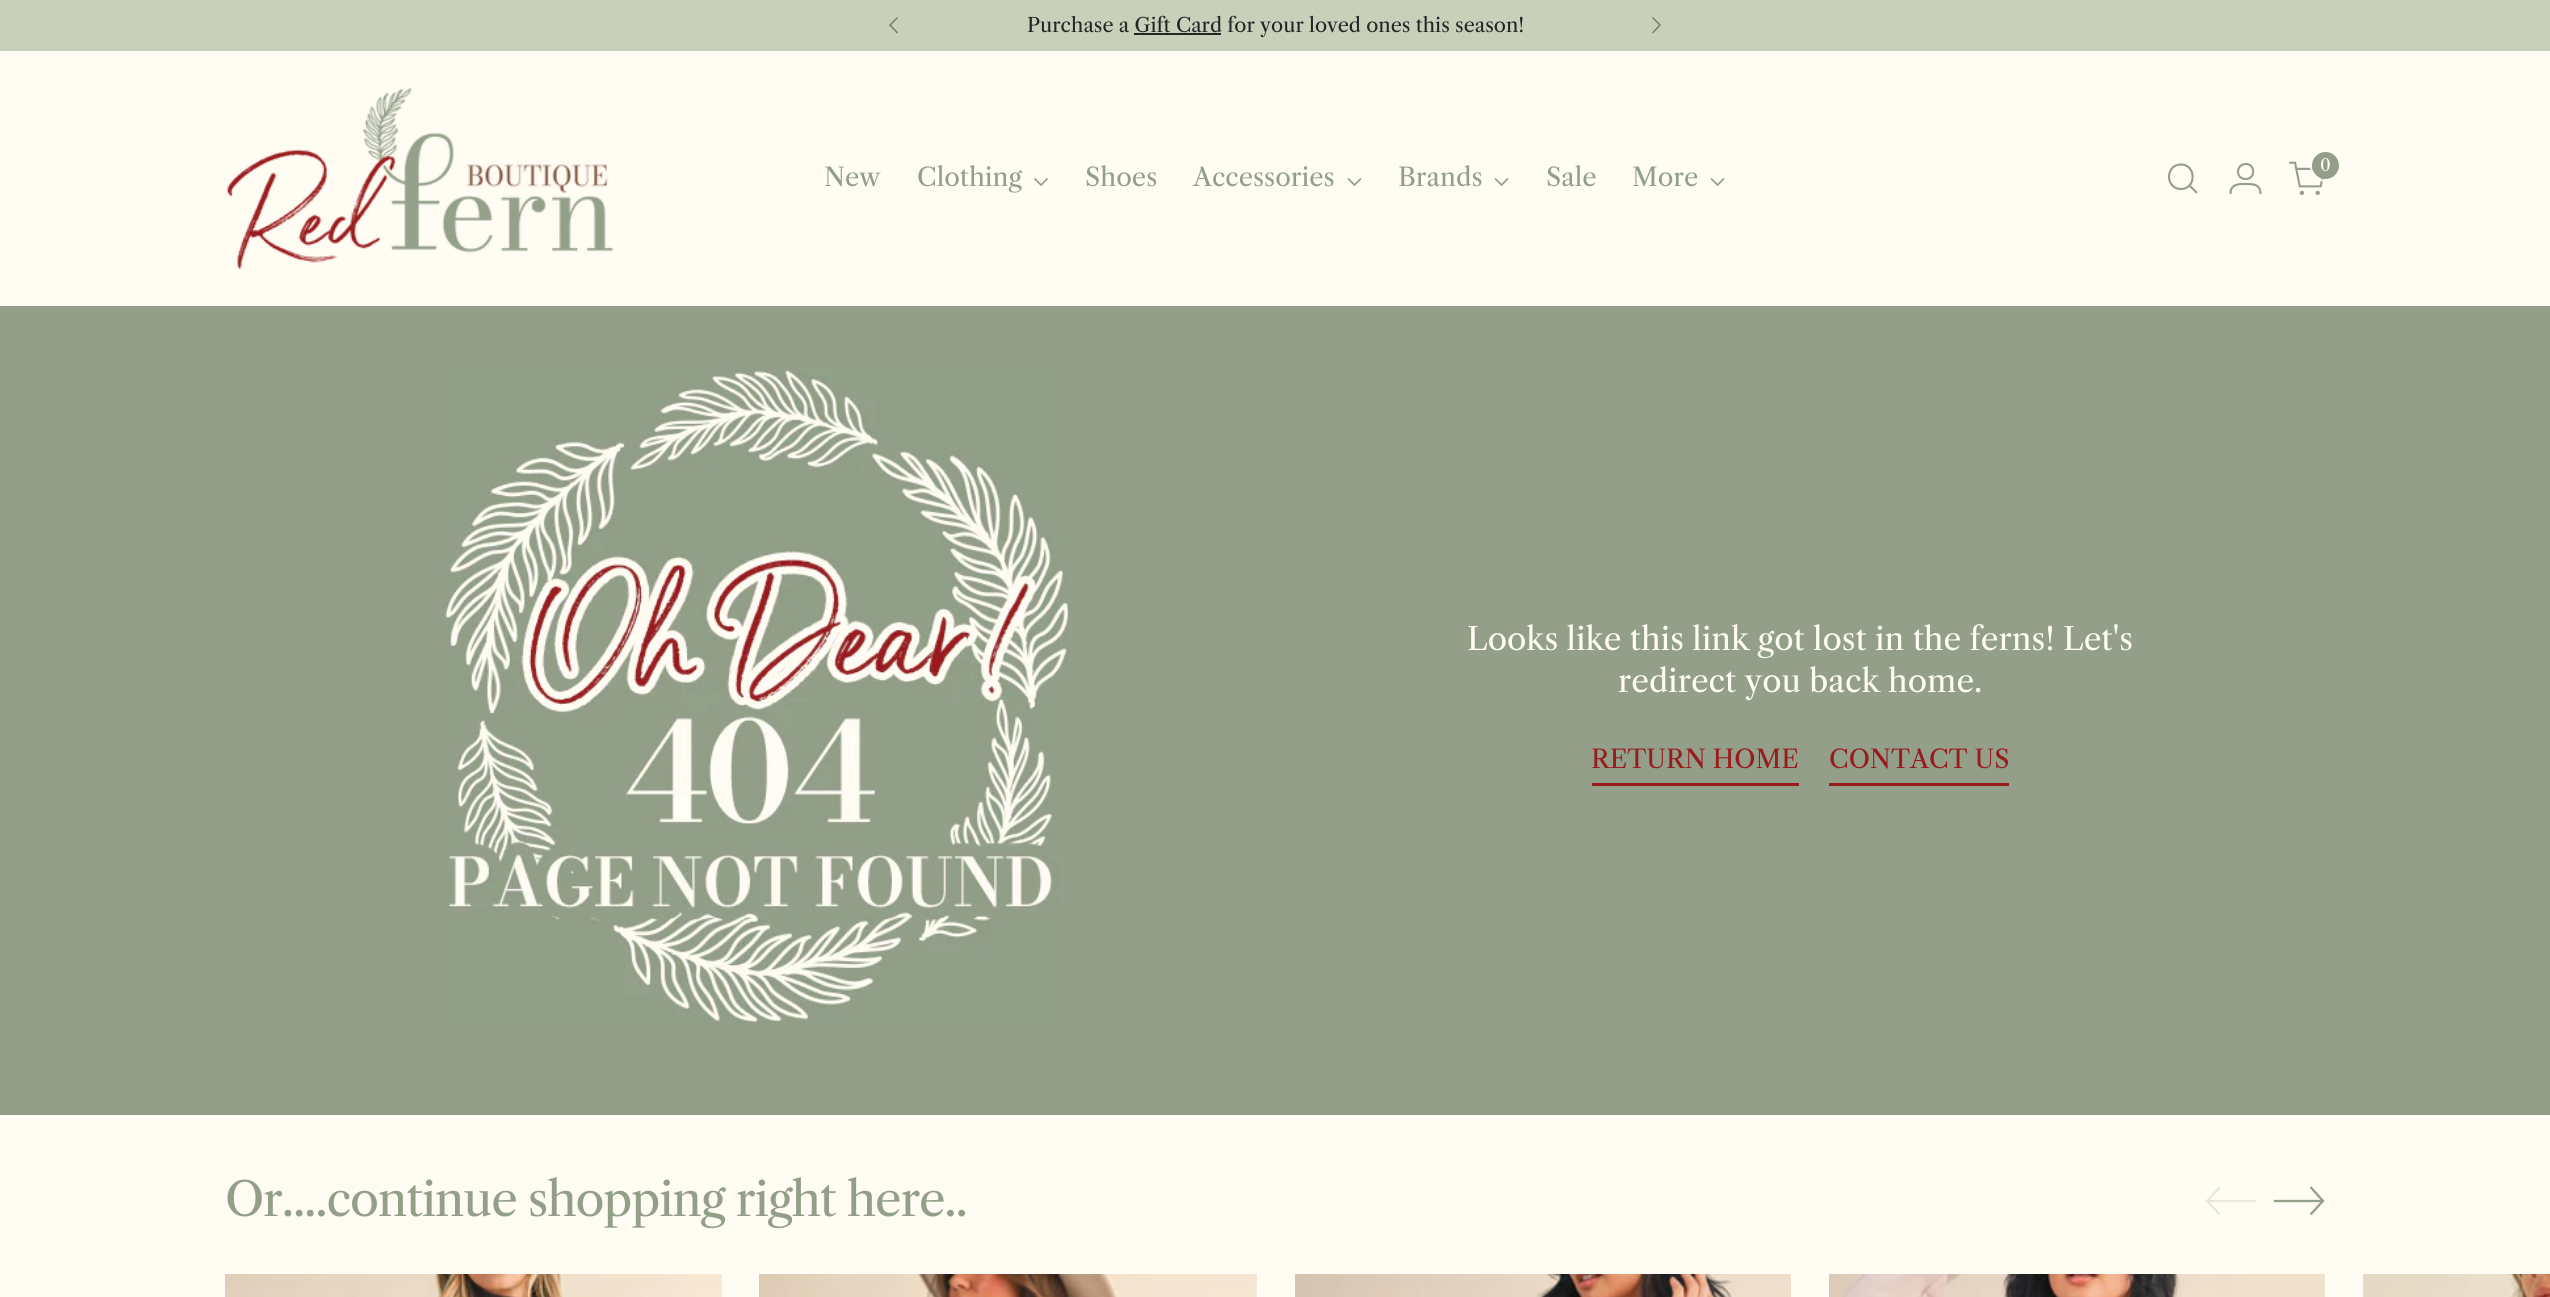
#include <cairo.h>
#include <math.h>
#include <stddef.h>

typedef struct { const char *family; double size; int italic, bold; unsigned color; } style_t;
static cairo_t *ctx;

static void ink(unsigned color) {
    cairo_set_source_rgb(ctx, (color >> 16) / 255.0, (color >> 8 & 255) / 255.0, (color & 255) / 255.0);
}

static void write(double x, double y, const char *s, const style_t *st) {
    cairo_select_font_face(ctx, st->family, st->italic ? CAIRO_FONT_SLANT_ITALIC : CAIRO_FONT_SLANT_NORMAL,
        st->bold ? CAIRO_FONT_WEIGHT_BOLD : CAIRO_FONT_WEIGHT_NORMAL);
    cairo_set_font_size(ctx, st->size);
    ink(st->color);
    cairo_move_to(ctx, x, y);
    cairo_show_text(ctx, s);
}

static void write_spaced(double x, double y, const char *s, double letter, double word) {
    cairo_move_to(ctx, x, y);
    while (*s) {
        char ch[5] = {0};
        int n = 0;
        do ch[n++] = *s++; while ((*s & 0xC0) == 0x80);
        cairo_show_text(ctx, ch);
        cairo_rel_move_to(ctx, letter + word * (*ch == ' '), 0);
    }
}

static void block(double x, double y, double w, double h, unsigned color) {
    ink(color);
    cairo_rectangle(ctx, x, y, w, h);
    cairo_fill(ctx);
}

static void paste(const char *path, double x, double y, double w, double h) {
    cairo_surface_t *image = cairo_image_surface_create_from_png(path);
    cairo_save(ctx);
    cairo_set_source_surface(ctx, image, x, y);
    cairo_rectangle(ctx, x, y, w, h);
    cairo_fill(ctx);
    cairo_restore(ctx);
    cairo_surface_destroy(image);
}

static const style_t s1 = {"Libre Caslon Text", 19.8, 0, 0, 0x242526};
static const style_t s2 = {"Libre Caslon Text", 25.5, 0, 0, 0x939f89};
static const style_t s3 = {"Libre Caslon Text", 17, 0, 0, 0xfffcf3};
static const style_t s4 = {"Libre Caslon Text", 31.5, 0, 0, 0xfffcf3};
static const style_t s5 = {"Libre Caslon Text", 25.5, 0, 0, 0x991b1e};

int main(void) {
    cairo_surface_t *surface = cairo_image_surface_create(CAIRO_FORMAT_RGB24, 2550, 1297);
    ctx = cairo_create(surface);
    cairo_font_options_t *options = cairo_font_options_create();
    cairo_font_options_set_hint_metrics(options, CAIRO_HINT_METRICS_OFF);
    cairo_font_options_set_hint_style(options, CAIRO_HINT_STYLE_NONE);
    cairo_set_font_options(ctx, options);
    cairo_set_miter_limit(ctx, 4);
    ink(0xfffcf3);
    cairo_paint(ctx);
    block(0, 0, 2550, 51, 0xc8d0b9);
    write(1027, 32, "Purchase a Gift Card for your loved ones this season!", &s1);
    block(1134, 33, 87, 2, 0x242526);
    cairo_new_path(ctx);
    cairo_move_to(ctx, 897.5, 17.5);
    cairo_line_to(ctx, 890, 25);
    cairo_line_to(ctx, 897.5, 33);
    ink(0x767b70);
    cairo_set_line_width(ctx, 1.5);
    cairo_stroke(ctx);
    cairo_new_path(ctx);
    cairo_move_to(ctx, 1652.5, 33);
    cairo_line_to(ctx, 1660, 25);
    cairo_line_to(ctx, 1652.5, 17.5);
    cairo_stroke(ctx);
    paste("pic1.png", 226, 87, 388, 183);
    write(824, 186, "New", &s2);
    write(917, 186, "Clothing", &s2);
    cairo_new_path(ctx);
    cairo_move_to(ctx, 1034.5, 178.5);
    cairo_line_to(ctx, 1041, 185);
    cairo_line_to(ctx, 1047.5, 178.5);
    cairo_set_line_width(ctx, 1.7);
    cairo_stroke(ctx);
    write(1085, 186, "Shoes", &s2);
    write(1193, 186, "Accessories", &s2);
    cairo_new_path(ctx);
    cairo_move_to(ctx, 1348, 178.5);
    cairo_line_to(ctx, 1354.5, 185);
    cairo_line_to(ctx, 1361, 178.5);
    cairo_stroke(ctx);
    write(1398, 186, "Brands", &s2);
    cairo_new_path(ctx);
    cairo_move_to(ctx, 1495, 178.5);
    cairo_line_to(ctx, 1501.5, 185);
    cairo_line_to(ctx, 1508, 178.5);
    cairo_stroke(ctx);
    write(1546, 186, "Sale", &s2);
    write(1632, 186, "More", &s2);
    cairo_new_path(ctx);
    cairo_move_to(ctx, 1711, 178.5);
    cairo_line_to(ctx, 1717.5, 185);
    cairo_line_to(ctx, 1724, 178.5);
    cairo_stroke(ctx);
    cairo_new_path(ctx);
    cairo_move_to(ctx, 2181, 189);
    cairo_curve_to(ctx, 2196.5, 189, 2196.5, 164.5, 2181, 164.5);
    cairo_curve_to(ctx, 2165, 164.5, 2165, 189, 2181, 189);
    cairo_close_path(ctx);
    cairo_set_line_width(ctx, 2.1);
    cairo_set_line_cap(ctx, CAIRO_LINE_CAP_ROUND);
    cairo_stroke(ctx);
    cairo_new_path(ctx);
    cairo_move_to(ctx, 2189.5, 185.5);
    cairo_line_to(ctx, 2197, 193);
    cairo_set_line_cap(ctx, CAIRO_LINE_CAP_BUTT);
    cairo_stroke(ctx);
    cairo_new_path(ctx);
    cairo_move_to(ctx, 2245.5, 179);
    cairo_curve_to(ctx, 2256, 179.5, 2255.5, 163.5, 2245.5, 164);
    cairo_curve_to(ctx, 2235.5, 164.5, 2235.5, 179, 2245.5, 179);
    cairo_close_path(ctx);
    cairo_move_to(ctx, 2230.5, 194);
    cairo_curve_to(ctx, 2230.5, 184, 2238, 184, 2245.5, 184);
    cairo_curve_to(ctx, 2253, 184, 2260.5, 184, 2260.5, 194);
    cairo_stroke(ctx);
    paste("pic2.png", 2289, 161, 35, 35);
    cairo_arc(ctx, 2326, 166, 15, 0, 2 * M_PI);
    ink(0xfffcf3);
    cairo_set_line_width(ctx, 2);
    cairo_stroke(ctx);
    ink(0x939f89);
    cairo_arc(ctx, 2325.5, 165.5, 13.5, 0, 2 * M_PI);
    cairo_fill(ctx);
    write(2320, 171, "0", &s3);
    block(0, 306, 2550, 809, 0x939f89);
    paste("pic3.png", 445, 366, 625, 660);
    write(1467, 650, "Looks like this link got lost in the ferns! Let's", &s4);
    write(1618, 692, "redirect you back home.", &s4);
    write(1591, 768, "RETURN HOME", &s5);
    block(1592, 783, 207, 3, 0x991b1e);
    write(1829, 768, "CONTACT US", &s5);
    block(1829, 783, 180, 3, 0x991b1e);
    cairo_set_font_size(ctx, 47.25);
    ink(0x939f89);
    write_spaced(225, 1216, "Or....continue shopping right here..", -1.2, 0);
    cairo_new_path(ctx);
    cairo_move_to(ctx, 2219.5, 1187.5);
    cairo_line_to(ctx, 2207, 1201);
    cairo_line_to(ctx, 2219.5, 1214.5);
    cairo_move_to(ctx, 2207, 1201);
    cairo_line_to(ctx, 2256, 1201);
    ink(0xe9e9de);
    cairo_set_line_width(ctx, 2.3);
    cairo_stroke(ctx);
    cairo_new_path(ctx);
    cairo_move_to(ctx, 2310.5, 1214.5);
    cairo_line_to(ctx, 2323, 1201);
    cairo_line_to(ctx, 2310.5, 1187);
    cairo_move_to(ctx, 2323, 1201);
    cairo_line_to(ctx, 2274, 1201);
    ink(0x939f89);
    cairo_stroke(ctx);
    paste("pic4.png", 225, 1274, 497, 23);
    paste("pic5.png", 759, 1274, 498, 23);
    paste("pic6.png", 1295, 1274, 496, 23);
    paste("pic7.png", 1829, 1274, 496, 23);
    paste("pic8.png", 2363, 1274, 187, 23);
    cairo_surface_write_to_png(surface, "screenshot.png");
    cairo_font_options_destroy(options);
    cairo_destroy(ctx);
    cairo_surface_destroy(surface);
    return 0;
}
